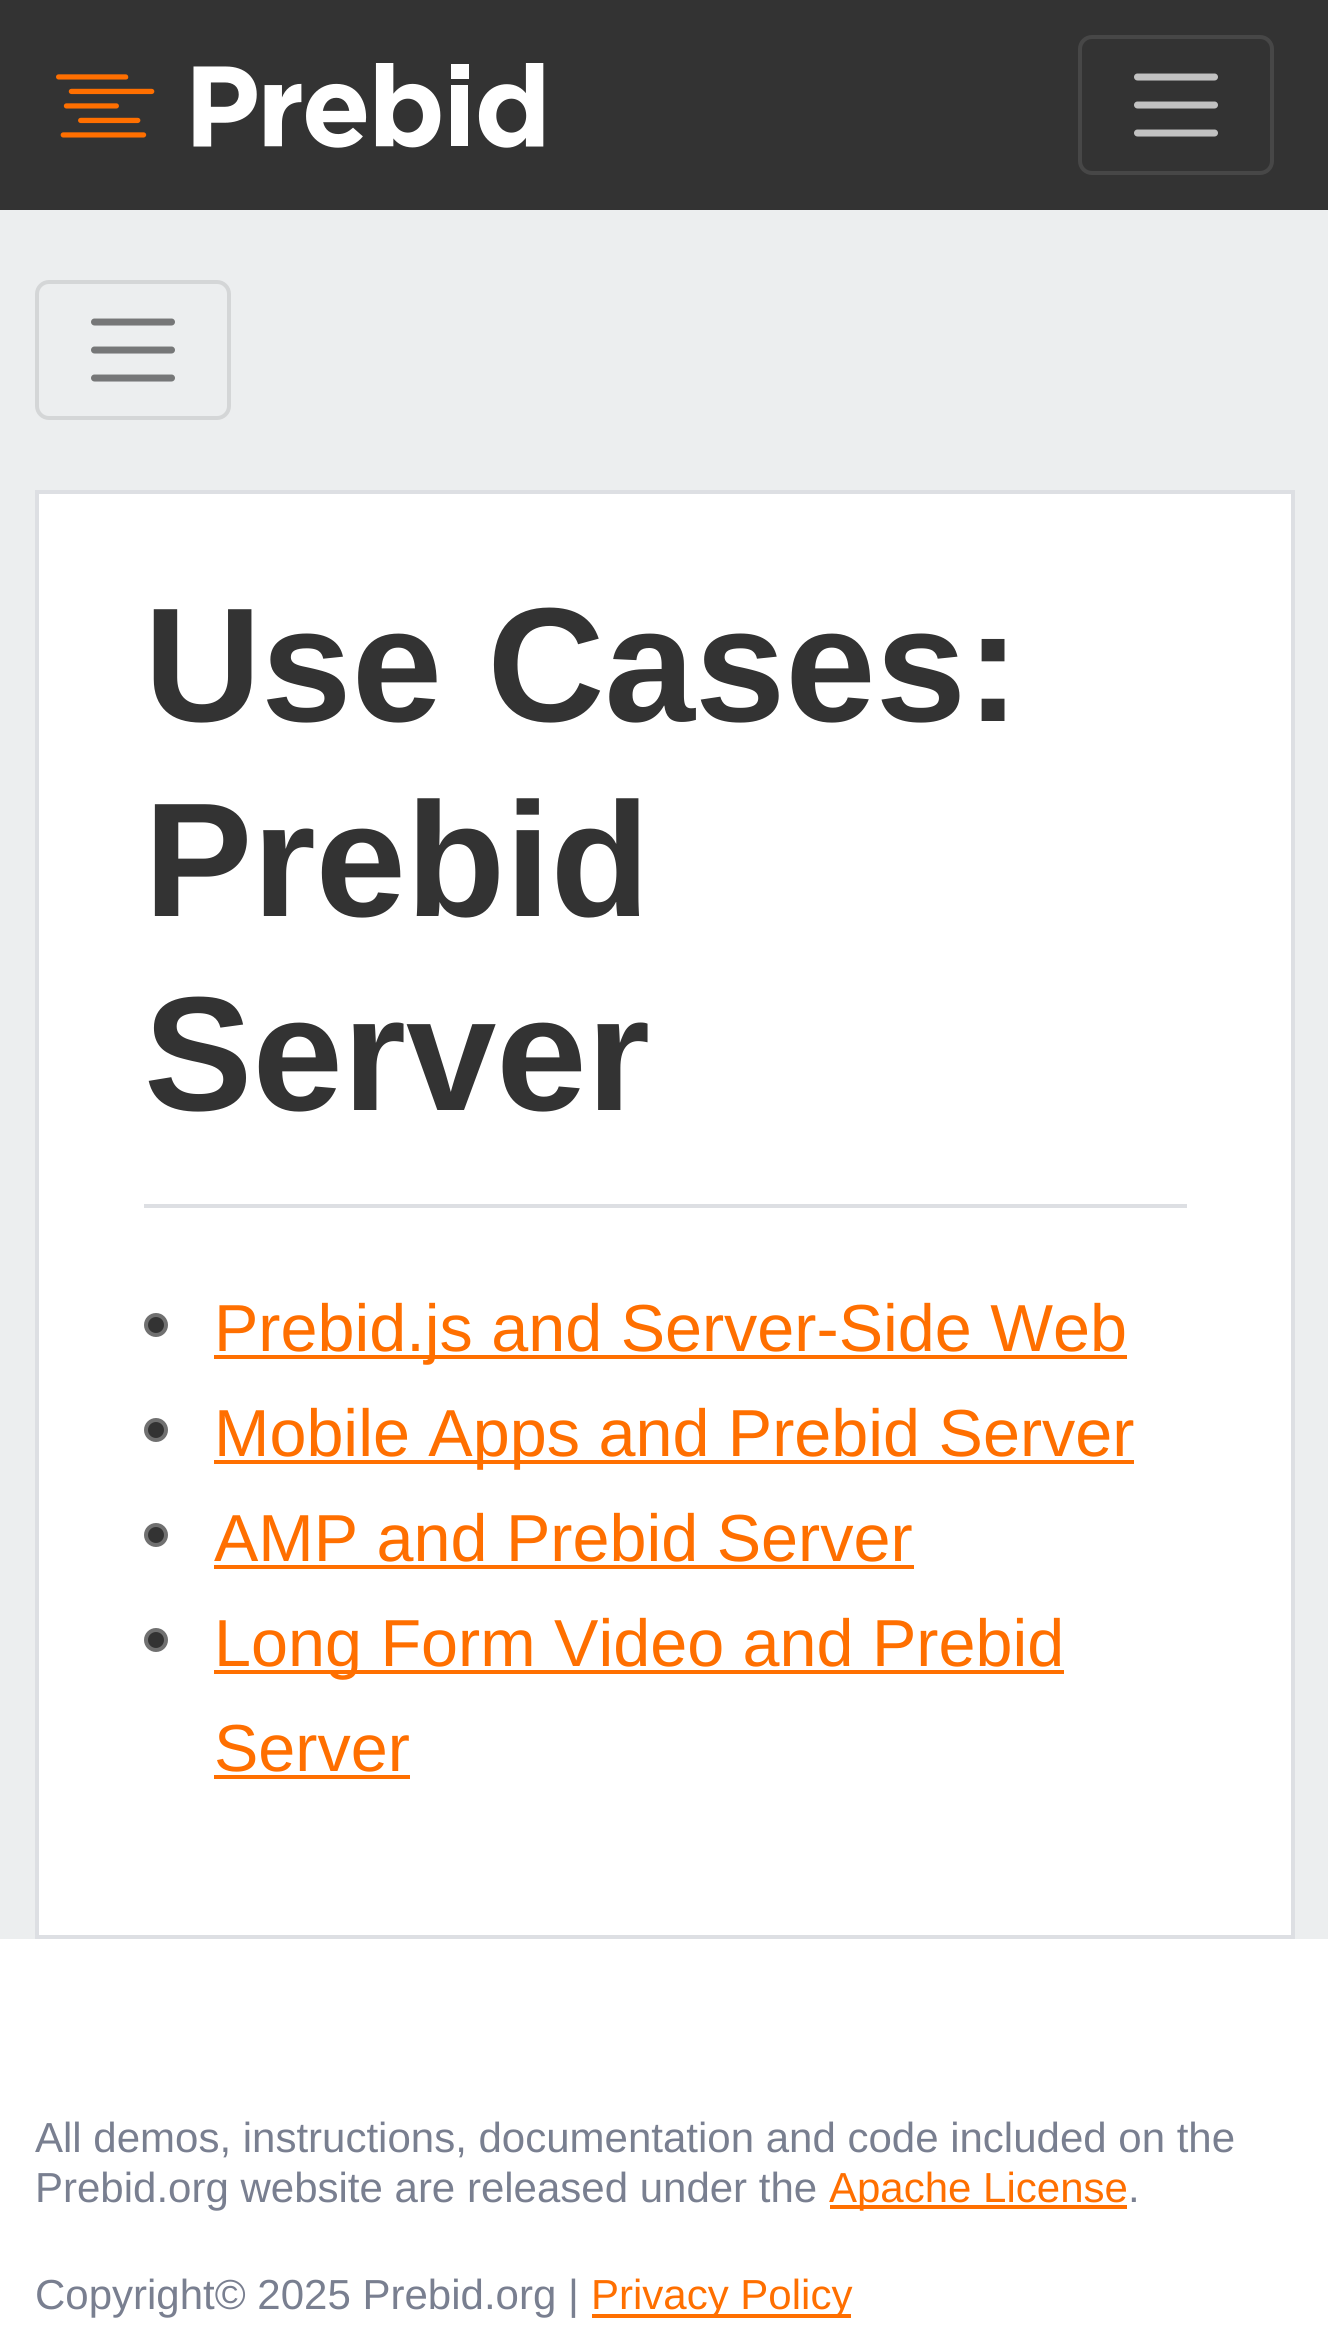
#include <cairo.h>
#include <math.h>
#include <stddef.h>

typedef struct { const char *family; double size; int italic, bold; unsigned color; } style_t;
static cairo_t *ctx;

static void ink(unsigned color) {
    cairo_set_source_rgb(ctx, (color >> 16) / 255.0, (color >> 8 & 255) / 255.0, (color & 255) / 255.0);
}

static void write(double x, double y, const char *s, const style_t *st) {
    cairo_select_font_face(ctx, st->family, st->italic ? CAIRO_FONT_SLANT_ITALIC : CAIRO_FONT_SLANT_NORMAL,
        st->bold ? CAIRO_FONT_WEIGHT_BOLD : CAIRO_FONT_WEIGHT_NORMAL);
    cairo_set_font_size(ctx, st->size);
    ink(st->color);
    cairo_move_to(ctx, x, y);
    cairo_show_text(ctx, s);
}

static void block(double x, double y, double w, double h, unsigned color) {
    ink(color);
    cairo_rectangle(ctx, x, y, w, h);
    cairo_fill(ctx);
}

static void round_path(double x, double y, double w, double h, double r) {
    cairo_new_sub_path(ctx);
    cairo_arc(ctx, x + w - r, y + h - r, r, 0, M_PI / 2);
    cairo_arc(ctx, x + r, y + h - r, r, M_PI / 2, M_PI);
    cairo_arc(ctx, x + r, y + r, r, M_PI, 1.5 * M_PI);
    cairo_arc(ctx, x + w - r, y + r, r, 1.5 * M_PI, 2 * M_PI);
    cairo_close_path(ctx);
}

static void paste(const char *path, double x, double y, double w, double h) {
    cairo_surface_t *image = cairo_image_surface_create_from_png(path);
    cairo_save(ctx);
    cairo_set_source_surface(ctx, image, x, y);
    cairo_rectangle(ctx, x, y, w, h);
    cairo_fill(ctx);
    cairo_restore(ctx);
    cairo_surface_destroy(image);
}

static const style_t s1 = {"Liberation Sans", 162.5, 0, 1, 0x333333};
static const style_t s2 = {"Liberation Sans", 66.5, 0, 0, 0xff6f00};
static const style_t s3 = {"Liberation Sans", 42, 0, 0, 0x797f90};
static const style_t s4 = {"Liberation Sans", 42, 0, 0, 0xff6f00};

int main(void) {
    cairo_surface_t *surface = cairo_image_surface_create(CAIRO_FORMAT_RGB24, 1328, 2335);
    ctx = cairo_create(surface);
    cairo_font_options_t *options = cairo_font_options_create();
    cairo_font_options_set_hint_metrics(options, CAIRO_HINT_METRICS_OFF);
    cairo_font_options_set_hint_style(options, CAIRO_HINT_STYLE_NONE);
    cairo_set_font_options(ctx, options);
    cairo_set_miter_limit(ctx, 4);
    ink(0xeceeef);
    cairo_paint(ctx);
    block(0, 0, 1328, 210, 0x333333);
    paste("pic1.png", 56, 63, 488, 85);
    round_path(1080, 37, 192, 136, 12);
    ink(0x474747);
    cairo_set_line_width(ctx, 4);
    cairo_stroke(ctx);
    cairo_new_path(ctx);
    cairo_move_to(ctx, 1137.5, 77);
    cairo_line_to(ctx, 1214.5, 77);
    cairo_move_to(ctx, 1137.5, 105);
    cairo_line_to(ctx, 1214.5, 105);
    cairo_move_to(ctx, 1137.5, 133);
    cairo_line_to(ctx, 1214.5, 133);
    ink(0xc2c2c2);
    cairo_set_line_width(ctx, 7);
    cairo_set_line_cap(ctx, CAIRO_LINE_CAP_ROUND);
    cairo_stroke(ctx);
    round_path(37, 282, 192, 136, 12);
    ink(0xd4d6d7);
    cairo_set_line_width(ctx, 4);
    cairo_set_line_cap(ctx, CAIRO_LINE_CAP_BUTT);
    cairo_stroke(ctx);
    cairo_new_path(ctx);
    cairo_move_to(ctx, 94.5, 322);
    cairo_line_to(ctx, 171.5, 322);
    cairo_move_to(ctx, 94.5, 350);
    cairo_line_to(ctx, 171.5, 350);
    cairo_move_to(ctx, 94.5, 378);
    cairo_line_to(ctx, 171.5, 378);
    ink(0x767778);
    cairo_set_line_width(ctx, 7);
    cairo_set_line_cap(ctx, CAIRO_LINE_CAP_ROUND);
    cairo_stroke(ctx);
    ink(0xffffff);
    cairo_rectangle(ctx, 37, 492, 1256, 1445);
    cairo_fill_preserve(ctx);
    ink(0xdddfe3);
    cairo_set_line_width(ctx, 4);
    cairo_set_line_cap(ctx, CAIRO_LINE_CAP_BUTT);
    cairo_stroke(ctx);
    block(144, 1204, 1043, 4, 0xdddfe3);
    write(144, 721, "Use Cases:", &s1);
    write(144, 916, "Prebid", &s1);
    write(144, 1110, "Server", &s1);
    cairo_new_path(ctx);
    cairo_arc(ctx, 156, 1325, 10, 0, 2 * M_PI);
    cairo_fill_preserve(ctx);
    ink(0x707070);
    cairo_stroke(ctx);
    block(214, 1355, 913, 4, 0xff6f00);
    write(214, 1351, "Prebid.js and Server-Side Web", &s2);
    ink(0x333333);
    cairo_new_path(ctx);
    cairo_arc(ctx, 156, 1430, 10, 0, 2 * M_PI);
    cairo_fill_preserve(ctx);
    ink(0x707070);
    cairo_stroke(ctx);
    block(214, 1460, 920, 4, 0xff6f00);
    write(214, 1456, "Mobile Apps and Prebid Server", &s2);
    ink(0x333333);
    cairo_new_path(ctx);
    cairo_arc(ctx, 156, 1535, 10, 0, 2 * M_PI);
    cairo_fill_preserve(ctx);
    ink(0x707070);
    cairo_stroke(ctx);
    write(214, 1561, "AMP and Prebid Server", &s2);
    block(214, 1565, 700, 4, 0xff6f00);
    ink(0x333333);
    cairo_new_path(ctx);
    cairo_arc(ctx, 156, 1640, 10, 0, 2 * M_PI);
    cairo_fill_preserve(ctx);
    ink(0x707070);
    cairo_stroke(ctx);
    block(214, 1670, 850, 4, 0xff6f00);
    write(214, 1666, "Long Form Video and Prebid", &s2);
    write(214, 1771, "Server", &s2);
    block(214, 1775, 196, 4, 0xff6f00);
    block(0, 1939, 1328, 396, 0xffffff);
    write(35, 2152, "All demos, instructions, documentation and code included on the", &s3);
    write(35, 2202, "Prebid.org website are released under the", &s3);
    block(830, 2205, 297, 4, 0xff6f00);
    write(829, 2202, "Apache License", &s4);
    write(1128, 2202, ".", &s3);
    write(35, 2309, "Copyright© 2025 Prebid.org |", &s3);
    block(592, 2314, 259, 4, 0xff6f00);
    write(591, 2309, "Privacy Policy", &s4);
    cairo_surface_write_to_png(surface, "screenshot.png");
    cairo_font_options_destroy(options);
    cairo_destroy(ctx);
    cairo_surface_destroy(surface);
    return 0;
}
